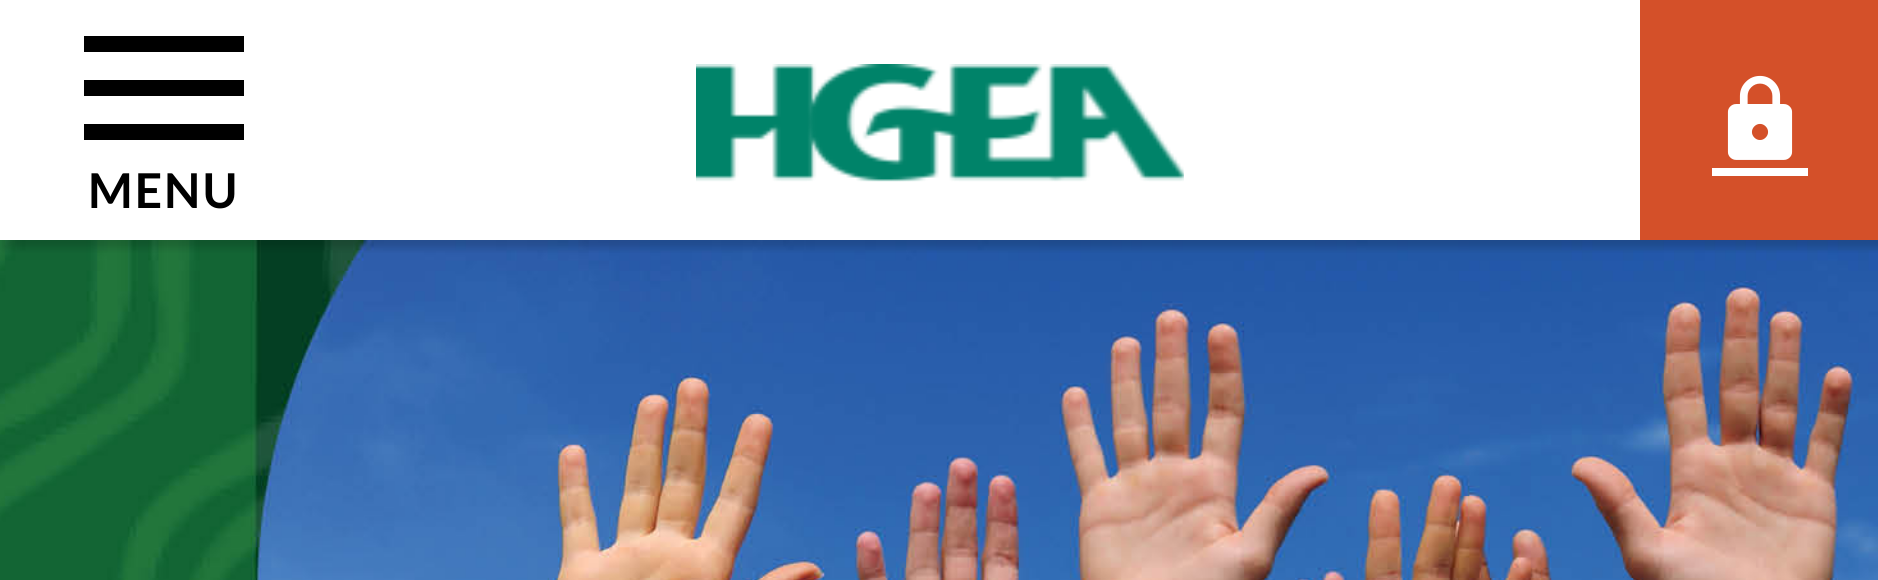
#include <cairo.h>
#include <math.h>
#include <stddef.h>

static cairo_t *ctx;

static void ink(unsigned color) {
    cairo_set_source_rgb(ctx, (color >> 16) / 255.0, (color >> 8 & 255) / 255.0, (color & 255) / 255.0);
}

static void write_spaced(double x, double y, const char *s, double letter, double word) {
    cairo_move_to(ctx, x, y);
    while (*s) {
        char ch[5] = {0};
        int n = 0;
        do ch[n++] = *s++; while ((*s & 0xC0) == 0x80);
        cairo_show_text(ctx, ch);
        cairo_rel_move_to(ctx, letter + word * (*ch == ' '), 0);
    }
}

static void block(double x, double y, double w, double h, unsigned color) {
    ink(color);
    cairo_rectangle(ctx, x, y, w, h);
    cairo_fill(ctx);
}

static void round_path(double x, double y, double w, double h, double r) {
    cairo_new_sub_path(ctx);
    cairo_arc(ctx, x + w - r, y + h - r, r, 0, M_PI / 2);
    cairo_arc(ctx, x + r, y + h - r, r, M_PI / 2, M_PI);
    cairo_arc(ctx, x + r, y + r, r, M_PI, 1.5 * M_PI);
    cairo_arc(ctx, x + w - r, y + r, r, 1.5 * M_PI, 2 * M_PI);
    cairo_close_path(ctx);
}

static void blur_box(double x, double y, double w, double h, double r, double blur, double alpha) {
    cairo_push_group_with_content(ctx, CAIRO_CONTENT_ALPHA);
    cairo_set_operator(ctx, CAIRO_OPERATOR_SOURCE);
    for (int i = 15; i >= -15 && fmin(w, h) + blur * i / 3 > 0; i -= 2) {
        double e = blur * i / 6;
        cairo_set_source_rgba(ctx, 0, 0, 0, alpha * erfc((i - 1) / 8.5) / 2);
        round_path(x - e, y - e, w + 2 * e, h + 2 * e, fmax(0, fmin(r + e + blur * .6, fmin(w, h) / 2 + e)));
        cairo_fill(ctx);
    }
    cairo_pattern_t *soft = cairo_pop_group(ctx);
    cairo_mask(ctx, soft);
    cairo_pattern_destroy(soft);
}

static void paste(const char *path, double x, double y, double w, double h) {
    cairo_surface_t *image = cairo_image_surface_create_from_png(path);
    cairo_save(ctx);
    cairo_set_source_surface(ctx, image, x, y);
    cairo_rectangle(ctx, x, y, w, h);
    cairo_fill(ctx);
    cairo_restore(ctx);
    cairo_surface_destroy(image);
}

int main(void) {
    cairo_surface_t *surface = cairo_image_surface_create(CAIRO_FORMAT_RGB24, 1878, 580);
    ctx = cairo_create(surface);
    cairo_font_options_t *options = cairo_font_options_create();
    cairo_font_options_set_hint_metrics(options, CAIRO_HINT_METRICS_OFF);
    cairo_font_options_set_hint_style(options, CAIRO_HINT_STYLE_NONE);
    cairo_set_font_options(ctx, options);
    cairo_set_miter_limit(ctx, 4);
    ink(0xffffff);
    cairo_paint(ctx);
    paste("pic3.png", 0, 240, 1878, 340);
    cairo_save(ctx);
    cairo_rectangle(ctx, 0, 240, 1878, 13);
    cairo_clip(ctx);
    ink(0x000000);
    blur_box(4, 8, 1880, 240, 0, 4, 0.16);
    cairo_restore(ctx);
    paste("pic1.png", 696, 64, 488, 118);
    block(1640, 0, 238, 240, 0xd45029);
    paste("pic2.png", 1727, 75, 66, 85);
    block(1712, 168, 96, 8, 0xffffff);
    block(84, 80, 160, 16, 0x000000);
    block(84, 36, 160, 16, 0x000000);
    block(84, 124, 160, 16, 0x000000);
    cairo_select_font_face(ctx, "Lato", CAIRO_FONT_SLANT_NORMAL, CAIRO_FONT_WEIGHT_BOLD);
    cairo_set_font_size(ctx, 48);
    write_spaced(88, 208, "MENU", 2, 0);
    cairo_surface_write_to_png(surface, "screenshot.png");
    cairo_font_options_destroy(options);
    cairo_destroy(ctx);
    cairo_surface_destroy(surface);
    return 0;
}
